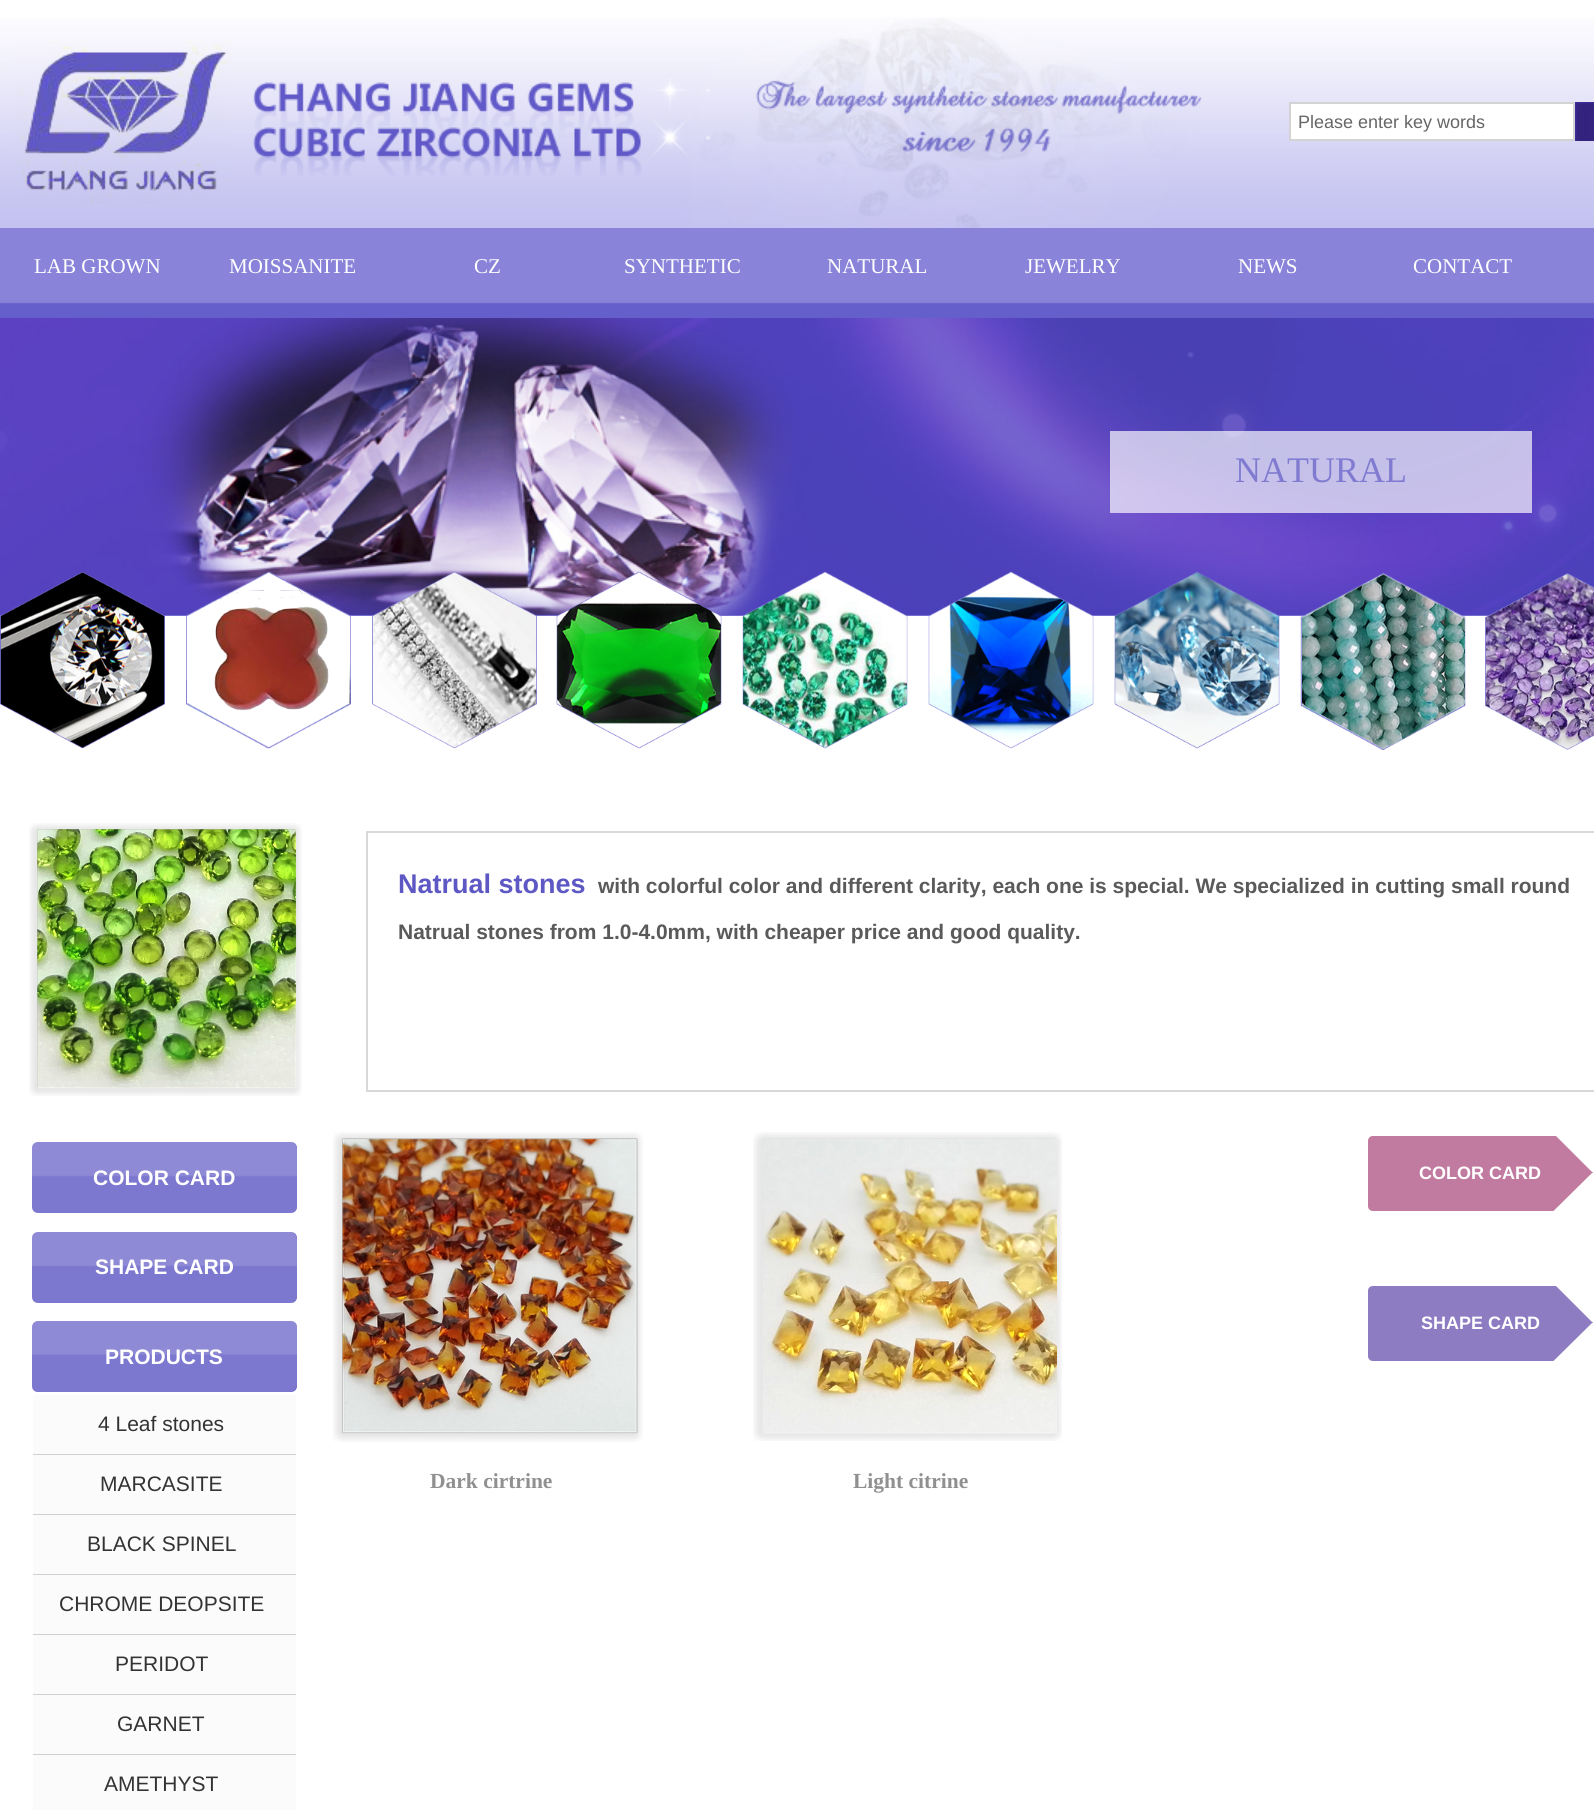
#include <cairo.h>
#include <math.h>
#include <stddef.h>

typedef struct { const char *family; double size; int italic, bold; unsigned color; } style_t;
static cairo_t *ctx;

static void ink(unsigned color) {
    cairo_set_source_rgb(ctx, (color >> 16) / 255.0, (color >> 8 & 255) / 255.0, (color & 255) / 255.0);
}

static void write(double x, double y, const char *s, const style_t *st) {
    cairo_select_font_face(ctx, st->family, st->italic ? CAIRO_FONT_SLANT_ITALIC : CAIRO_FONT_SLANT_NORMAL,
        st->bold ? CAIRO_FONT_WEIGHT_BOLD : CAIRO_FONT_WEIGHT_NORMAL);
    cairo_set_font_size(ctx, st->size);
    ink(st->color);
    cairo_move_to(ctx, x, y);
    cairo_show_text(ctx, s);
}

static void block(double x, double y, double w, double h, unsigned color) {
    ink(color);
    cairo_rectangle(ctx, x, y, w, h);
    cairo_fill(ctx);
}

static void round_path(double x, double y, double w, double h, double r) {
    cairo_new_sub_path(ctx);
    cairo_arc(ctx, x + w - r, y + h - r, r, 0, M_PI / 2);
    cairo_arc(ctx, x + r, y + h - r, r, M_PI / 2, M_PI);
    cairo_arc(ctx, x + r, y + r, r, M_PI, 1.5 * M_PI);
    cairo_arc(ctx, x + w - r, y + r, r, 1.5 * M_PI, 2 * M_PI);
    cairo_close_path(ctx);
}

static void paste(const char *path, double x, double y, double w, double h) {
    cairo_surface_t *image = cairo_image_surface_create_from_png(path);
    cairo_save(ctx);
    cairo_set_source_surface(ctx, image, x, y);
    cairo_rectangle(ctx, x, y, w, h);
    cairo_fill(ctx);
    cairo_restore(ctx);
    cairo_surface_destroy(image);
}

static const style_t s1 = {"Liberation Sans", 18, 0, 0, 0x666666};
static const style_t s2 = {"Liberation Serif", 21, 0, 0, 0xffffff};
static const style_t s3 = {"Liberation Serif", 36, 0, 0, 0x807bd0};
static const style_t s4 = {"Liberation Sans", 27, 0, 1, 0x5e58c4};
static const style_t s5 = {"Liberation Sans", 21, 0, 1, 0x5a5a5a};
static const style_t s6 = {"Liberation Sans", 21, 0, 1, 0xffffff};
static const style_t s7 = {"Liberation Sans", 21, 0, 0, 0x333333};
static const style_t s8 = {"Liberation Serif", 21.5, 0, 1, 0x909090};
static const style_t s9 = {"Liberation Sans", 18, 0, 1, 0xffffff};

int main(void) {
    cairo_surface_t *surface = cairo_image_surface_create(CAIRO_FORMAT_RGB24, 1594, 1810);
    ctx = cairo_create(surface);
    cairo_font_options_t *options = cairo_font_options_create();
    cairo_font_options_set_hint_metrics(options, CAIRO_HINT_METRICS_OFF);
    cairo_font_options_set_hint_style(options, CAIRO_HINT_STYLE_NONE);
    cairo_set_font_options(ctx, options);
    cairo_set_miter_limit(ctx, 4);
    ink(0xffffff);
    cairo_paint(ctx);
    paste("pic1.png", 0, 17, 1594, 211);
    paste("pic2.png", 15, 41, 216, 163);
    paste("pic3.png", 253, 78, 949, 98);
    ink(0xffffff);
    cairo_rectangle(ctx, 1290, 103, 284, 37);
    cairo_fill_preserve(ctx);
    ink(0xd3d3d3);
    cairo_stroke(ctx);
    write(1298, 128, "Please enter key words", &s1);
    paste("pic4.png", 1575, 102, 19, 39);
    paste("pic5.png", 0, 228, 1594, 90);
    write(34, 273, "LAB GROWN", &s2);
    write(229, 273, "MOISSANITE", &s2);
    write(474, 273, "CZ", &s2);
    write(624, 273, "SYNTHETIC", &s2);
    write(827, 273, "NATURAL", &s2);
    write(1025, 273, "JEWELRY", &s2);
    write(1238, 273, "NEWS", &s2);
    write(1413, 273, "CONTACT", &s2);
    paste("pic6.png", 0, 318, 1594, 297);
    cairo_set_source_rgba(ctx, 1, 1, 1, 0.67);
    cairo_rectangle(ctx, 1110, 431, 422, 82);
    cairo_fill(ctx);
    write(1235, 482, "NATURAL", &s3);
    block(0, 615, 1490, 1, 0x756fd1);
    paste("pic7.png", 0, 571, 165, 178);
    paste("pic8.png", 186, 571, 165, 178);
    paste("pic9.png", 372, 571, 165, 178);
    paste("pic10.png", 556, 571, 166, 178);
    paste("pic11.png", 742, 571, 166, 178);
    paste("pic12.png", 928, 571, 166, 178);
    paste("pic13.png", 1114, 571, 166, 178);
    paste("pic14.png", 1300, 573, 166, 177);
    paste("pic15.png", 1485, 573, 109, 177);
    paste("pic16.png", 29, 823, 273, 273);
    cairo_rectangle(ctx, 367, 832, 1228, 259);
    ink(0xd9d9d9);
    cairo_stroke(ctx);
    write(398, 893, "Natrual stones", &s4);
    write(598, 893, "with colorful color and different clarity, each one is special. We specialized in cutting small round", &s5);
    write(398, 939, "Natrual stones from 1.0-4.0mm, with cheaper price and good quality.", &s5);
    ink(0x5e58c4);
    round_path(31, 1141, 267, 73, 7);
    cairo_fill_preserve(ctx);
    ink(0xffffff);
    cairo_stroke(ctx);
    paste("pic17.png", 32, 1142, 265, 71);
    write(93, 1185, "COLOR CARD", &s6);
    ink(0x5e58c4);
    round_path(31, 1231, 267, 73, 7);
    cairo_fill_preserve(ctx);
    ink(0xffffff);
    cairo_stroke(ctx);
    paste("pic17.png", 32, 1232, 265, 71);
    write(95, 1274, "SHAPE CARD", &s6);
    ink(0x5e58c4);
    round_path(31, 1320, 267, 73, 7);
    cairo_fill_preserve(ctx);
    ink(0xffffff);
    cairo_stroke(ctx);
    paste("pic18.png", 32, 1321, 265, 71);
    write(105, 1364, "PRODUCTS", &s6);
    block(33, 1395, 263, 59, 0xfbfbfb);
    block(33, 1454, 263, 1, 0xd0d0d0);
    write(98, 1431, "4 Leaf stones", &s7);
    block(33, 1455, 263, 59, 0xfbfbfb);
    block(33, 1514, 263, 1, 0xd0d0d0);
    write(100, 1491, "MARCASITE", &s7);
    block(33, 1515, 263, 59, 0xfbfbfb);
    block(33, 1574, 263, 1, 0xd0d0d0);
    write(87, 1551, "BLACK SPINEL", &s7);
    block(33, 1575, 263, 59, 0xfbfbfb);
    block(33, 1634, 263, 1, 0xd0d0d0);
    write(59, 1611, "CHROME DEOPSITE", &s7);
    block(33, 1635, 263, 59, 0xfbfbfb);
    block(33, 1694, 263, 1, 0xd0d0d0);
    write(115, 1671, "PERIDOT", &s7);
    block(33, 1695, 263, 59, 0xfbfbfb);
    block(33, 1754, 263, 1, 0xd0d0d0);
    write(117, 1731, "GARNET", &s7);
    block(33, 1755, 263, 55, 0xfbfbfb);
    write(104, 1791, "AMETHYST", &s7);
    paste("pic19.png", 333, 1132, 310, 310);
    write(430, 1488, "Dark cirtrine", &s8);
    paste("pic20.png", 753, 1132, 309, 309);
    write(853, 1488, "Light citrine", &s8);
    cairo_save(ctx);
    cairo_rectangle(ctx, 1368, 1136, 225, 75);
    cairo_clip(ctx);
    ink(0xc27ba0);
    cairo_new_path(ctx);
    cairo_move_to(ctx, 1593, 1173);
    cairo_line_to(ctx, 1518, 1173);
    cairo_line_to(ctx, 1518, 1098);
    cairo_close_path(ctx);
    cairo_fill(ctx);
    cairo_new_path(ctx);
    cairo_move_to(ctx, 1518, 1172);
    cairo_line_to(ctx, 1593, 1172);
    cairo_line_to(ctx, 1518, 1246);
    cairo_close_path(ctx);
    cairo_fill(ctx);
    cairo_restore(ctx);
    ink(0xc27ba0);
    cairo_new_path(ctx);
    cairo_move_to(ctx, 1373, 1136);
    cairo_line_to(ctx, 1520, 1136);
    cairo_line_to(ctx, 1520, 1211);
    cairo_line_to(ctx, 1373, 1211);
    cairo_curve_to(ctx, 1370, 1211, 1368, 1209, 1368, 1206);
    cairo_line_to(ctx, 1368, 1141);
    cairo_curve_to(ctx, 1368, 1138, 1370, 1136, 1373, 1136);
    cairo_close_path(ctx);
    cairo_fill(ctx);
    write(1419, 1179, "COLOR CARD", &s9);
    cairo_save(ctx);
    cairo_rectangle(ctx, 1368, 1286, 225, 75);
    cairo_clip(ctx);
    ink(0x8e7cc3);
    cairo_new_path(ctx);
    cairo_move_to(ctx, 1593, 1323);
    cairo_line_to(ctx, 1518, 1323);
    cairo_line_to(ctx, 1518, 1248);
    cairo_close_path(ctx);
    cairo_fill(ctx);
    cairo_new_path(ctx);
    cairo_move_to(ctx, 1518, 1322);
    cairo_line_to(ctx, 1593, 1322);
    cairo_line_to(ctx, 1518, 1396);
    cairo_close_path(ctx);
    cairo_fill(ctx);
    cairo_restore(ctx);
    ink(0x8e7cc3);
    cairo_new_path(ctx);
    cairo_move_to(ctx, 1373, 1286);
    cairo_line_to(ctx, 1520, 1286);
    cairo_line_to(ctx, 1520, 1361);
    cairo_line_to(ctx, 1373, 1361);
    cairo_curve_to(ctx, 1370, 1361, 1368, 1359, 1368, 1356);
    cairo_line_to(ctx, 1368, 1291);
    cairo_curve_to(ctx, 1368, 1288, 1370, 1286, 1373, 1286);
    cairo_close_path(ctx);
    cairo_fill(ctx);
    write(1421, 1329, "SHAPE CARD", &s9);
    cairo_surface_write_to_png(surface, "screenshot.png");
    cairo_font_options_destroy(options);
    cairo_destroy(ctx);
    cairo_surface_destroy(surface);
    return 0;
}
